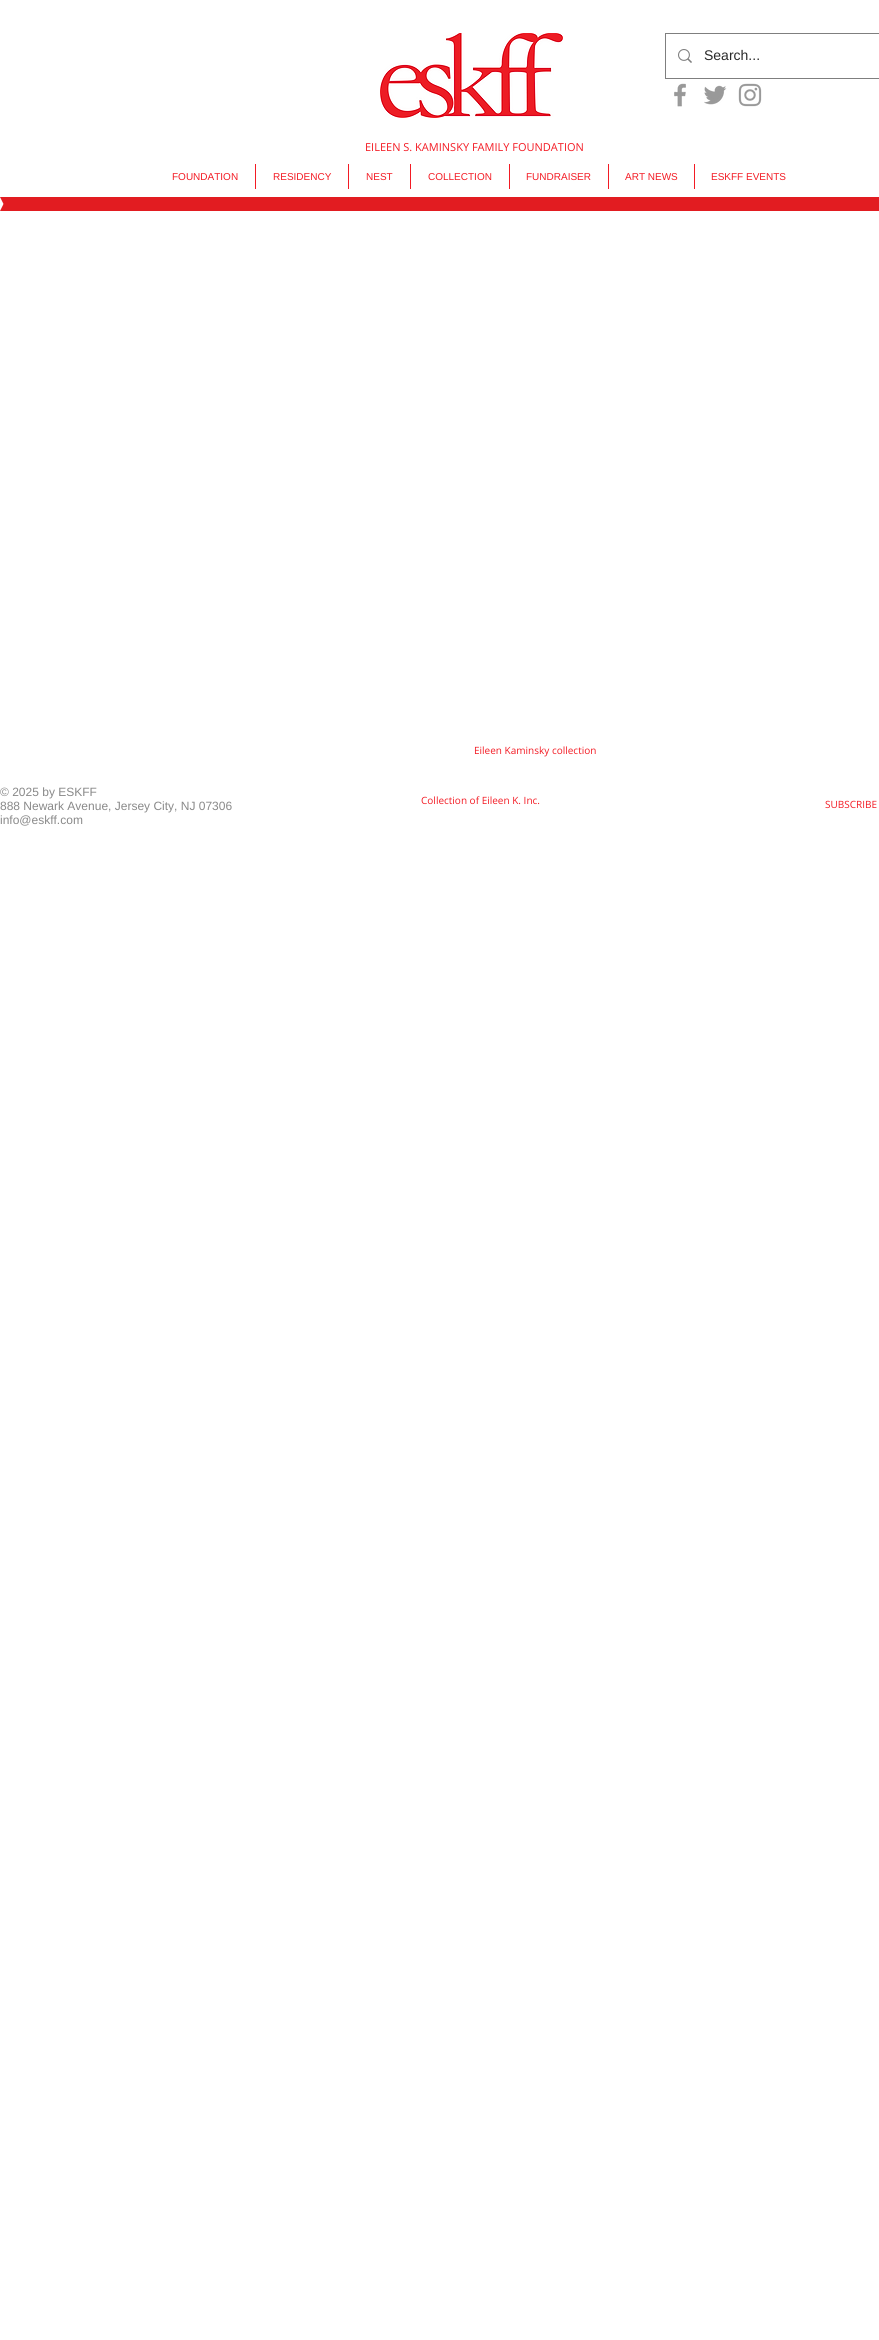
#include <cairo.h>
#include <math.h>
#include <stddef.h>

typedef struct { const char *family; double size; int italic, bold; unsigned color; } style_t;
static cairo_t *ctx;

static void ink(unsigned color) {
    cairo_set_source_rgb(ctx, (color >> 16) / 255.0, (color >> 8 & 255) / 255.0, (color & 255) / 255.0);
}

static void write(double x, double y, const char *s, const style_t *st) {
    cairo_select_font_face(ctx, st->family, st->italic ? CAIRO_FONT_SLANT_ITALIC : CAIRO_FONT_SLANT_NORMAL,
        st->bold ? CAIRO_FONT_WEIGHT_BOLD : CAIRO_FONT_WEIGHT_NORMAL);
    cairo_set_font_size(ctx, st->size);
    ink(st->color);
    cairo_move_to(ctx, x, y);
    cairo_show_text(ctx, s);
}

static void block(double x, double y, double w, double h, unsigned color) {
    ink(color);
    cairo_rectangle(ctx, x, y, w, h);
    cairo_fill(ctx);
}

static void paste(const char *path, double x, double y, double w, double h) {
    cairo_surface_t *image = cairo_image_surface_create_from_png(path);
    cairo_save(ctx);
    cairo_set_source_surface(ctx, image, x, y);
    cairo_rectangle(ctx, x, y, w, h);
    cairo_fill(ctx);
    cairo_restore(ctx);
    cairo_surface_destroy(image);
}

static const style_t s1 = {"Liberation Sans", 14, 0, 0, 0x2a2a2a};
static const style_t s2 = {"Open Sans", 11, 0, 0, 0xf31b24};
static const style_t s3 = {"Liberation Sans", 10, 0, 0, 0xf31b24};
static const style_t s4 = {"Open Sans", 10, 0, 0, 0xf31b24};
static const style_t s5 = {"Liberation Sans", 12, 0, 0, 0x898989};

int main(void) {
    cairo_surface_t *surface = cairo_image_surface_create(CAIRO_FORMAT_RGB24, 879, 2340);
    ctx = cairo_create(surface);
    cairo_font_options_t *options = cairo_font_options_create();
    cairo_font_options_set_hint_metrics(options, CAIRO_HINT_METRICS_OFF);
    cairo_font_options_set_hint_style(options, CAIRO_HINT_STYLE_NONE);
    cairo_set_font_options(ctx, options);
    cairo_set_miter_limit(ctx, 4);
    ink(0xffffff);
    cairo_paint(ctx);
    paste("pic1.png", 380, 33, 183, 85);
    cairo_rectangle(ctx, 665.5, 33.5, 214, 45);
    ink(0x7f7f7f);
    cairo_set_line_width(ctx, 1);
    cairo_stroke(ctx);
    paste("pic2.png", 678, 49, 14, 14);
    write(704, 60, "Search...", &s1);
    paste("pic3.png", 674, 83, 12, 24);
    paste("pic4.png", 704, 85, 23, 20);
    paste("pic5.png", 738, 83, 24, 24);
    write(365, 151, "EILEEN S. KAMINSKY FAMILY FOUNDATION", &s2);
    write(172, 180, "FOUNDATION", &s3);
    block(255, 164, 1, 25, 0xf31b24);
    write(273, 180, "RESIDENCY", &s3);
    block(348, 164, 1, 25, 0xf31b24);
    write(366, 180, "NEST", &s3);
    block(410, 164, 1, 25, 0xf31b24);
    write(428, 180, "COLLECTION", &s3);
    block(509, 164, 1, 25, 0xf31b24);
    write(526, 180, "FUNDRAISER", &s3);
    block(608, 164, 1, 25, 0xf31b24);
    write(625, 180, "ART NEWS", &s3);
    block(694, 164, 1, 25, 0xf31b24);
    write(711, 180, "ESKFF EVENTS", &s3);
    cairo_save(ctx);
    cairo_rectangle(ctx, 0, 197, 490, 8);
    cairo_clip(ctx);
    ink(0xe21c21);
    cairo_new_path(ctx);
    cairo_move_to(ctx, 0, 197);
    cairo_line_to(ctx, 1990, 197);
    cairo_line_to(ctx, 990, 1197);
    cairo_line_to(ctx, 500, 1197);
    cairo_close_path(ctx);
    cairo_fill(ctx);
    cairo_restore(ctx);
    cairo_save(ctx);
    cairo_rectangle(ctx, 489, 197, 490, 8);
    cairo_clip(ctx);
    ink(0xe21c21);
    cairo_new_path(ctx);
    cairo_move_to(ctx, -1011, 197);
    cairo_line_to(ctx, 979, 197);
    cairo_line_to(ctx, 479, 1197);
    cairo_line_to(ctx, -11, 1197);
    cairo_close_path(ctx);
    cairo_fill(ctx);
    cairo_restore(ctx);
    cairo_save(ctx);
    cairo_rectangle(ctx, 0, 204, 490, 7);
    cairo_clip(ctx);
    ink(0xe21c21);
    cairo_new_path(ctx);
    cairo_move_to(ctx, 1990, 211);
    cairo_line_to(ctx, 0, 211);
    cairo_line_to(ctx, 500, -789);
    cairo_line_to(ctx, 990, -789);
    cairo_close_path(ctx);
    cairo_fill(ctx);
    cairo_restore(ctx);
    cairo_save(ctx);
    cairo_rectangle(ctx, 489, 204, 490, 7);
    cairo_clip(ctx);
    ink(0xe21c21);
    cairo_new_path(ctx);
    cairo_move_to(ctx, 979, 211);
    cairo_line_to(ctx, -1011, 211);
    cairo_line_to(ctx, -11, -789);
    cairo_line_to(ctx, 479, -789);
    cairo_close_path(ctx);
    cairo_fill(ctx);
    cairo_restore(ctx);
    write(474, 754, "Eileen Kaminsky collection", &s4);
    write(0, 796, "© 2025 by ESKFF", &s5);
    write(0, 810, "888 Newark Avenue, Jersey City, NJ 07306", &s5);
    write(0, 824, "info@eskff.com", &s5);
    write(421, 804, "Collection of Eileen K. Inc.", &s4);
    write(825, 808, "SUBSCRIBE", &s4);
    cairo_surface_write_to_png(surface, "screenshot.png");
    cairo_font_options_destroy(options);
    cairo_destroy(ctx);
    cairo_surface_destroy(surface);
    return 0;
}
